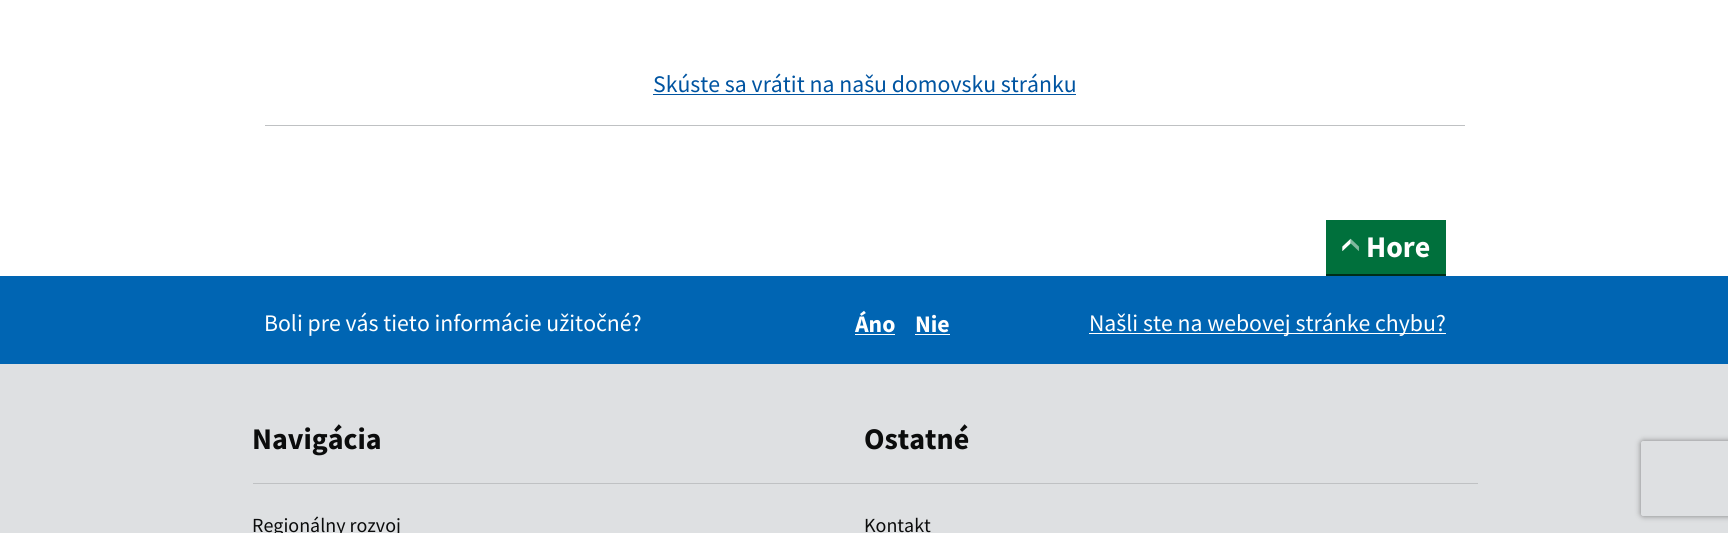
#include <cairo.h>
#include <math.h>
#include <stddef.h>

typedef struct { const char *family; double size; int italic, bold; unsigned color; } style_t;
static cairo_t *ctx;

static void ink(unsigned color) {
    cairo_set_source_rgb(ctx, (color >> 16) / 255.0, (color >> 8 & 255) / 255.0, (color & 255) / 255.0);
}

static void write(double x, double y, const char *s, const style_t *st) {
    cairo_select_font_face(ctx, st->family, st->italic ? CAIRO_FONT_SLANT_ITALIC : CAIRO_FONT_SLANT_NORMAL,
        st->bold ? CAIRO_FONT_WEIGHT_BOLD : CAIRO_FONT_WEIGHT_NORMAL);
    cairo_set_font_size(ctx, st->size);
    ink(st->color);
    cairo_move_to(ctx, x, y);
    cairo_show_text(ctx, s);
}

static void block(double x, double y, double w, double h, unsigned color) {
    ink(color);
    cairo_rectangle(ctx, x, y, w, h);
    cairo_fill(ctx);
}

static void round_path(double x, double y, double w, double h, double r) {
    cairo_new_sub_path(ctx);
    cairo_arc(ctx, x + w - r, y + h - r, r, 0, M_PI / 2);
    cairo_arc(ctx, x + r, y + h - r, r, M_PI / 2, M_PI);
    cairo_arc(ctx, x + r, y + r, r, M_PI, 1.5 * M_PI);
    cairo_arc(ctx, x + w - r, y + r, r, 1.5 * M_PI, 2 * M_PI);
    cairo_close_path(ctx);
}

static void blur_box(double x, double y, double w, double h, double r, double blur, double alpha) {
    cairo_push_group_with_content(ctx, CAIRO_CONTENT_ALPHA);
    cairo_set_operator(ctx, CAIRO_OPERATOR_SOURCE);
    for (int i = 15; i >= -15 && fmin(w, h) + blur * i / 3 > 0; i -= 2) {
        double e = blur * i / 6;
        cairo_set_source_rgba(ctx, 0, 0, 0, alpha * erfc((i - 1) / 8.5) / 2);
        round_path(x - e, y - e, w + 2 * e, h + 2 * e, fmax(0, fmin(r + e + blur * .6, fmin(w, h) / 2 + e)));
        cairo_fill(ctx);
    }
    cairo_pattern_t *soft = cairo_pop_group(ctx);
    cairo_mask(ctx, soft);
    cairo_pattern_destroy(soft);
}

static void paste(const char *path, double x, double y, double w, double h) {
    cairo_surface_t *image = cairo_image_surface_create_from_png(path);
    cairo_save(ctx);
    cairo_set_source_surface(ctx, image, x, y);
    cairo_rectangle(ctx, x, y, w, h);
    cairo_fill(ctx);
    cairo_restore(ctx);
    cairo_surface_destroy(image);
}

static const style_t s1 = {"Source Sans Pro", 23.75, 0, 0, 0x0054a1};
static const style_t s2 = {"Source Sans Pro", 30, 0, 1, 0xffffff};
static const style_t s3 = {"Source Sans Pro", 23.75, 0, 0, 0xffffff};
static const style_t s4 = {"Source Sans Pro", 23.75, 0, 1, 0xffffff};
static const style_t s5 = {"Source Sans Pro", 30, 0, 1, 0x0b0c0c};
static const style_t s6 = {"Source Sans Pro", 20, 0, 0, 0x0b0c0c};

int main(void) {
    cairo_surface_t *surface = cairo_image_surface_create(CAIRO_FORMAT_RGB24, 1728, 533);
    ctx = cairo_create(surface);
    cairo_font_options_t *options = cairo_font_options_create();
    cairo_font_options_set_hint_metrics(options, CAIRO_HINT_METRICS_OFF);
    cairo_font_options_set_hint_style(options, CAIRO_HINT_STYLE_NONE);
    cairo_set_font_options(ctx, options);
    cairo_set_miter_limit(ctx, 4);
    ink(0xffffff);
    cairo_paint(ctx);
    block(265, 125, 1200, 1, 0xbfc1c3);
    write(653, 92, "Skúste sa vrátit na našu domovsku stránku", &s1);
    block(653, 94, 423, 1, 0x0054a1);
    block(0, 364, 1728, 169, 0xdee0e2);
    ink(0x002d18);
    cairo_new_path(ctx);
    cairo_move_to(ctx, 1326, 223);
    cairo_line_to(ctx, 1326, 276);
    cairo_line_to(ctx, 1446, 276);
    cairo_line_to(ctx, 1446, 274);
    cairo_line_to(ctx, 1326, 274);
    cairo_close_path(ctx);
    cairo_fill(ctx);
    block(1326, 220, 120, 54, 0x00703c);
    paste("pic1.png", 1342, 238, 17, 13);
    write(1366, 257, "Hore", &s2);
    block(0, 276, 1728, 88, 0x0065b3);
    write(264, 331, "Boli pre vás tieto informácie užitočné?", &s3);
    write(855, 332, "Áno", &s4);
    block(855, 334, 40, 1, 0xffffff);
    write(915, 332, "Nie", &s4);
    block(915, 334, 35, 1, 0xffffff);
    block(1089, 333, 357, 1, 0xffffff);
    write(1089, 331, "Našli ste na webovej stránke chybu?", &s3);
    write(252, 449, "Navigácia", &s5);
    block(253, 483, 1225, 1, 0xbfc1c3);
    write(252, 532, "Regionálny rozvoj", &s6);
    write(864, 449, "Ostatné", &s5);
    write(864, 532, "Kontakt", &s6);
    cairo_save(ctx);
    cairo_set_fill_rule(ctx, CAIRO_FILL_RULE_EVEN_ODD);
    cairo_new_path(ctx);
    cairo_move_to(ctx, 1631, 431);
    cairo_line_to(ctx, 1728, 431);
    cairo_line_to(ctx, 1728, 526);
    cairo_line_to(ctx, 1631, 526);
    cairo_close_path(ctx);
    cairo_move_to(ctx, 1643.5, 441);
    cairo_line_to(ctx, 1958.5, 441);
    cairo_curve_to(ctx, 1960, 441, 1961, 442, 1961, 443.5);
    cairo_line_to(ctx, 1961, 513.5);
    cairo_curve_to(ctx, 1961, 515, 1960, 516, 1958.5, 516);
    cairo_line_to(ctx, 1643.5, 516);
    cairo_curve_to(ctx, 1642, 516, 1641, 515, 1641, 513.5);
    cairo_line_to(ctx, 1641, 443.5);
    cairo_curve_to(ctx, 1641, 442, 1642, 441, 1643.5, 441);
    cairo_close_path(ctx);
    cairo_clip(ctx);
    ink(0x808080);
    blur_box(1641, 441, 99, 75, 2.5, 3, 1);
    cairo_restore(ctx);
    cairo_surface_write_to_png(surface, "screenshot.png");
    cairo_font_options_destroy(options);
    cairo_destroy(ctx);
    cairo_surface_destroy(surface);
    return 0;
}
